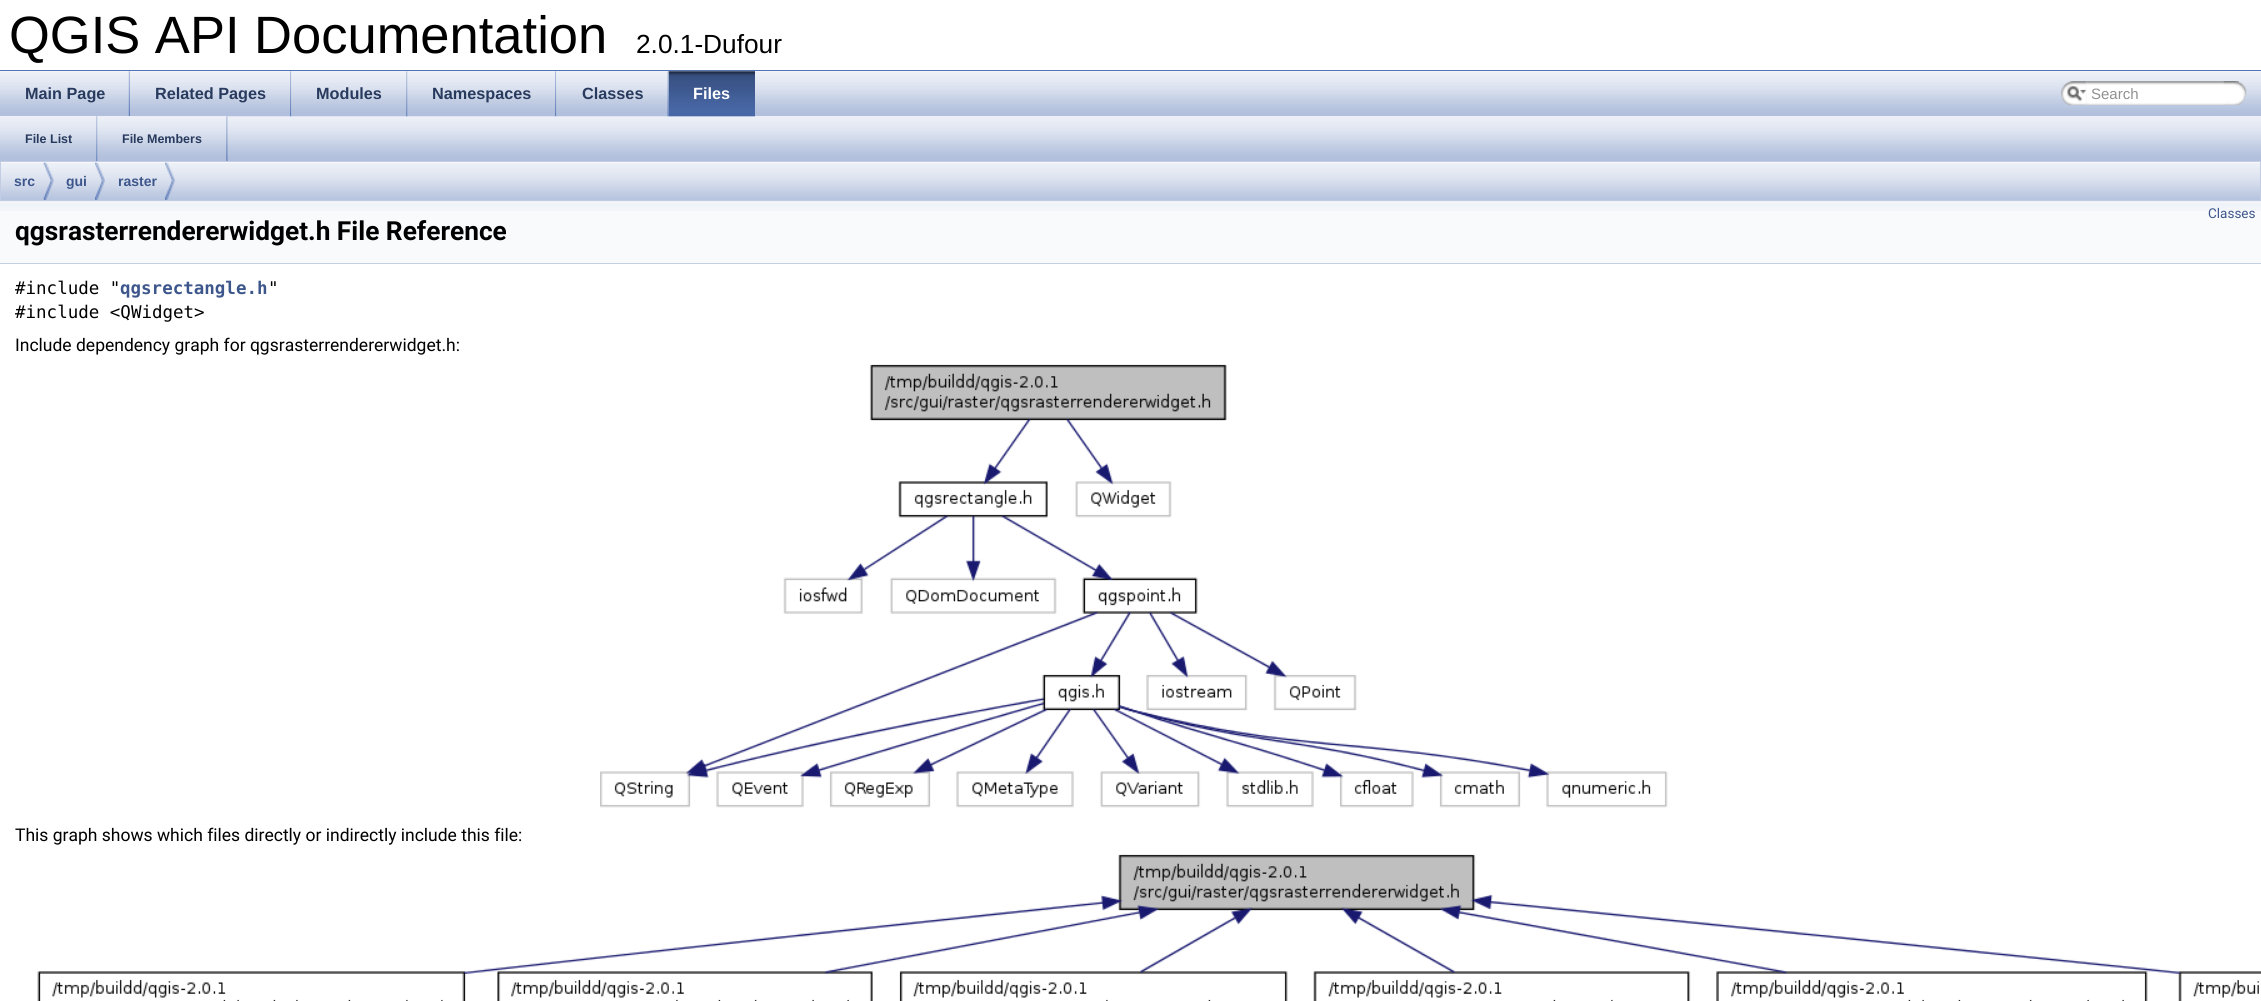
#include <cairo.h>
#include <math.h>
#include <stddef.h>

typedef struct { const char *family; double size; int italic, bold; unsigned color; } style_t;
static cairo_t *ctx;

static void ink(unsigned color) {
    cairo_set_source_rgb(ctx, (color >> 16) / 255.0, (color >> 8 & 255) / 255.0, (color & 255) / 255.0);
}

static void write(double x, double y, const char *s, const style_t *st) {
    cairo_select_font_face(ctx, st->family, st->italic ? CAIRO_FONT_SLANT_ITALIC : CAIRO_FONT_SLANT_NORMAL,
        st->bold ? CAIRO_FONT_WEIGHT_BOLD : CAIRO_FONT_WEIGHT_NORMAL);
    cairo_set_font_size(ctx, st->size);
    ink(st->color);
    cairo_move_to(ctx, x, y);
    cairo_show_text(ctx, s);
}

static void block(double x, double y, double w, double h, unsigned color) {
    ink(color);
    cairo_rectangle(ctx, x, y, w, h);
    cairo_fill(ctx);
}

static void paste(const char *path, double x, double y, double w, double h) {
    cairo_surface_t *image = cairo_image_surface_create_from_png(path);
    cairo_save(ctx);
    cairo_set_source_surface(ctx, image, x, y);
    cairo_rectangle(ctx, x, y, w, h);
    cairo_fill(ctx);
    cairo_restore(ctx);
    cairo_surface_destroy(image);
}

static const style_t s1 = {"Liberation Sans", 52.5, 0, 0, 0x000000};
static const style_t s2 = {"Liberation Sans", 26.25, 0, 0, 0x000000};
static const style_t s3 = {"Liberation Sans", 16.25, 0, 1, 0x283a5d};
static const style_t s4 = {"Liberation Sans", 16.25, 0, 1, 0xffffff};
static const style_t s5 = {"Liberation Sans", 15, 0, 0, 0x909090};
static const style_t s6 = {"Liberation Sans", 12.5, 0, 1, 0x283a5d};
static const style_t s7 = {"Liberation Sans", 14, 0, 1, 0x3d578c};
static const style_t s8 = {"Roboto", 13.5, 0, 0, 0x3d578c};
static const style_t s9 = {"Roboto", 26.25, 0, 1, 0x000000};
static const style_t s10 = {"DejaVu Sans Mono", 17.5, 0, 0, 0x000000};
static const style_t s11 = {"DejaVu Sans Mono", 17.5, 0, 1, 0x3d578c};
static const style_t s12 = {"Roboto", 17.5, 0, 0, 0x000000};

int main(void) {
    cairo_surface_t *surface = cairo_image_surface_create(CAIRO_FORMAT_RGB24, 2261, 1001);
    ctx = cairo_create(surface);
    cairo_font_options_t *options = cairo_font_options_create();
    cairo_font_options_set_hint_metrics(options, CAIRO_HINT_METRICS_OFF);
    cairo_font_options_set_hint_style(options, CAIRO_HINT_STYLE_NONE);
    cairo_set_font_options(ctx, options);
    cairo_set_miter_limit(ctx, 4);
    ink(0xffffff);
    cairo_paint(ctx);
    block(0, 70, 2261, 1, 0x5373b4);
    write(9, 53, "QGIS API Documentation", &s1);
    write(636, 53, "2.0.1-Dufour", &s2);
    paste("pic1.png", 0, 71, 2261, 46);
    paste("pic2.png", 128, 71, 2, 46);
    write(25, 99, "Main Page", &s3);
    block(130, 116, 161, 1, 0xdee3f1);
    paste("pic3.png", 290, 71, 2, 46);
    write(155, 99, "Related Pages", &s3);
    paste("pic4.png", 291, 71, 117, 46);
    paste("pic5.png", 406, 71, 2, 46);
    write(316, 99, "Modules", &s3);
    paste("pic6.png", 407, 71, 149, 46);
    paste("pic7.png", 555, 71, 2, 46);
    write(432, 99, "Namespaces", &s3);
    paste("pic8.png", 556, 71, 113, 46);
    paste("pic9.png", 667, 71, 2, 46);
    write(582, 99, "Classes", &s3);
    paste("pic10.png", 668, 71, 87, 46);
    paste("pic11.png", 668, 71, 87, 46);
    write(693, 99, "Files", &s4);
    paste("pic12.png", 2061, 81, 26, 24);
    paste("pic13.png", 2067, 86, 20, 16);
    paste("pic14.png", 2086, 81, 153, 24);
    write(2091, 99, "Search", &s5);
    paste("pic15.png", 2223, 81, 24, 24);
    paste("pic16.png", 97, 117, 2164, 44);
    paste("pic17.png", 0, 116, 98, 45);
    paste("pic18.png", 96, 116, 2, 45);
    write(25, 143, "File List", &s6);
    paste("pic19.png", 97, 116, 131, 45);
    paste("pic18.png", 226, 116, 2, 45);
    write(122, 143, "File Members", &s6);
    block(0, 201, 2261, 62, 0xf9fafc);
    paste("pic23.png", 0, 201, 2261, 10);
    paste("pic20.png", 0, 162, 2261, 40);
    cairo_rectangle(ctx, 0.5, 161.5, 2260, 39);
    ink(0xc2cde4);
    cairo_set_line_width(ctx, 1);
    cairo_stroke(ctx);
    paste("pic21.png", 43, 162, 11, 38);
    write(14, 186, "src", &s7);
    paste("pic22.png", 95, 162, 10, 38);
    write(66, 186, "gui", &s7);
    paste("pic22.png", 165, 162, 10, 38);
    write(118, 186, "raster", &s7);
    block(0, 263, 2261, 1, 0xc4cfe5);
    write(2208, 218, "Classes", &s8);
    write(15, 240, "qgsrasterrendererwidget.h File Reference", &s9);
    write(15, 294, "#include \"", &s10);
    write(120, 294, "qgsrectangle.h", &s11);
    write(268, 294, "\"", &s10);
    write(15, 318, "#include <QWidget>", &s10);
    write(15, 351, "Include dependency graph for qgsrasterrendererwidget.h:", &s12);
    paste("pic24.png", 600, 364, 1068, 444);
    write(15, 841, "This graph shows which files directly or indirectly include this file:", &s12);
    paste("pic25.png", 37, 854, 2224, 147);
    cairo_surface_write_to_png(surface, "screenshot.png");
    cairo_font_options_destroy(options);
    cairo_destroy(ctx);
    cairo_surface_destroy(surface);
    return 0;
}
